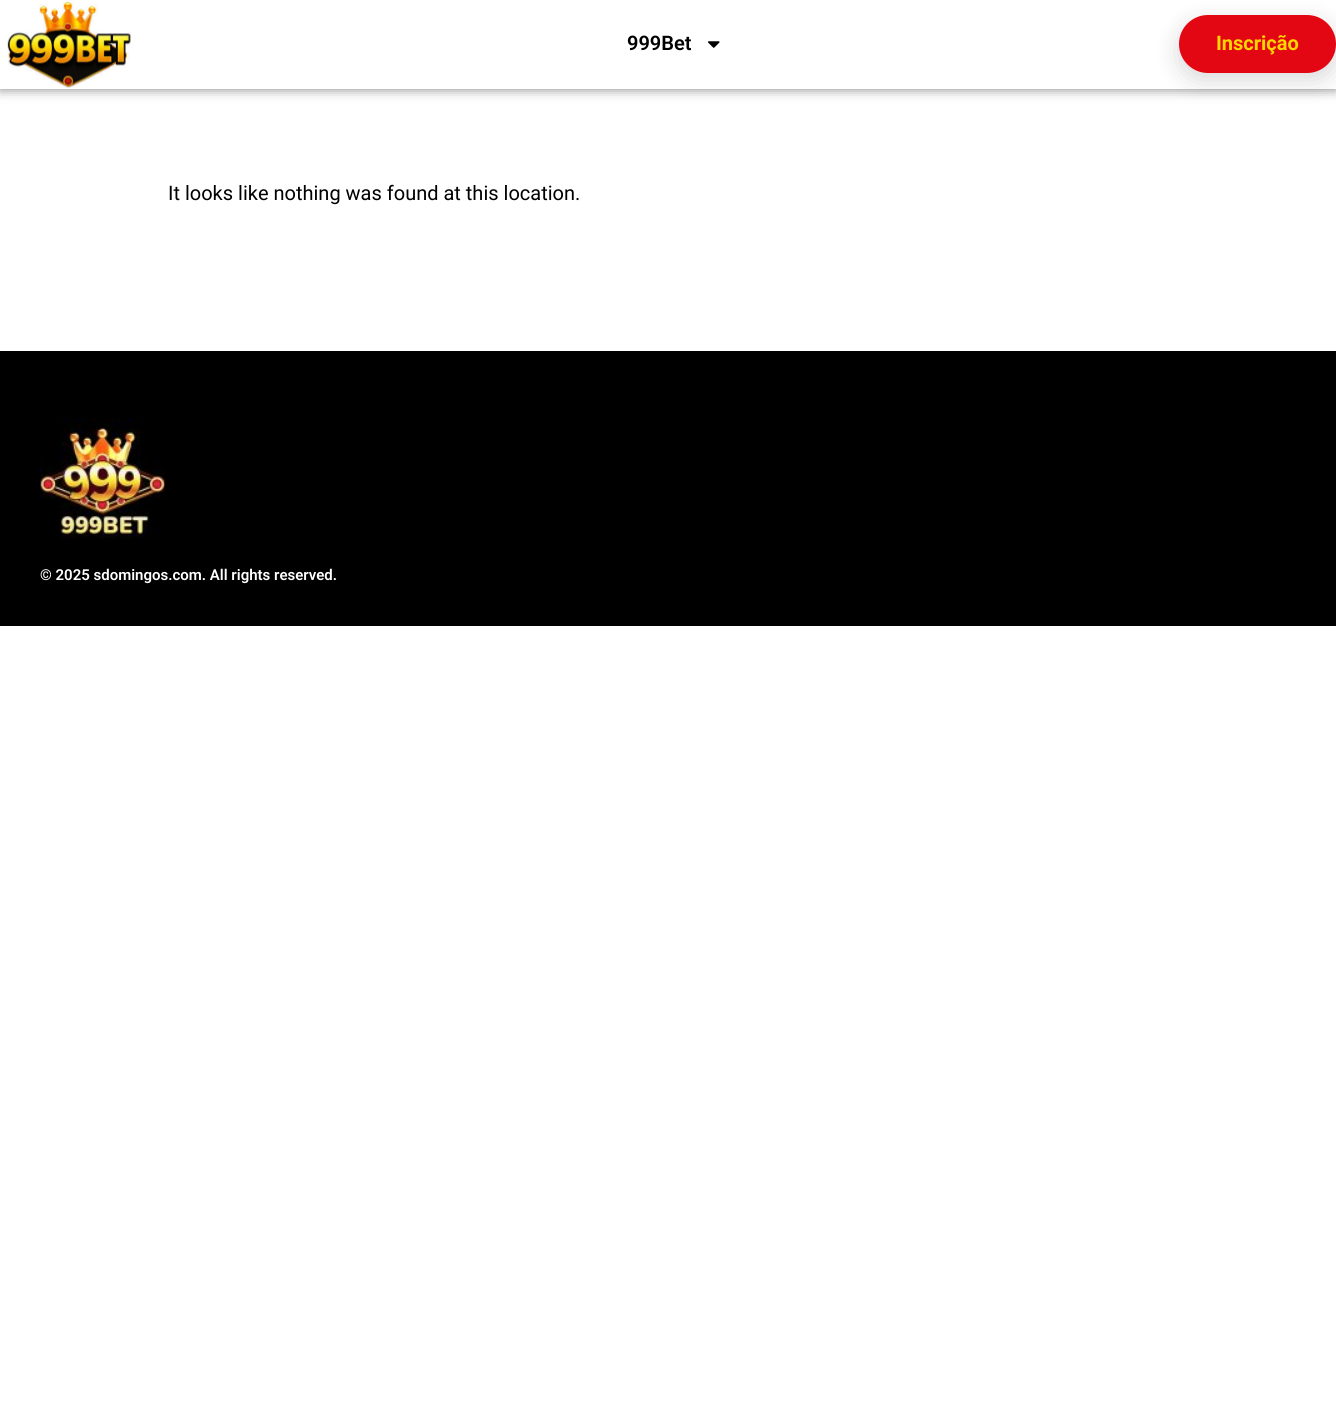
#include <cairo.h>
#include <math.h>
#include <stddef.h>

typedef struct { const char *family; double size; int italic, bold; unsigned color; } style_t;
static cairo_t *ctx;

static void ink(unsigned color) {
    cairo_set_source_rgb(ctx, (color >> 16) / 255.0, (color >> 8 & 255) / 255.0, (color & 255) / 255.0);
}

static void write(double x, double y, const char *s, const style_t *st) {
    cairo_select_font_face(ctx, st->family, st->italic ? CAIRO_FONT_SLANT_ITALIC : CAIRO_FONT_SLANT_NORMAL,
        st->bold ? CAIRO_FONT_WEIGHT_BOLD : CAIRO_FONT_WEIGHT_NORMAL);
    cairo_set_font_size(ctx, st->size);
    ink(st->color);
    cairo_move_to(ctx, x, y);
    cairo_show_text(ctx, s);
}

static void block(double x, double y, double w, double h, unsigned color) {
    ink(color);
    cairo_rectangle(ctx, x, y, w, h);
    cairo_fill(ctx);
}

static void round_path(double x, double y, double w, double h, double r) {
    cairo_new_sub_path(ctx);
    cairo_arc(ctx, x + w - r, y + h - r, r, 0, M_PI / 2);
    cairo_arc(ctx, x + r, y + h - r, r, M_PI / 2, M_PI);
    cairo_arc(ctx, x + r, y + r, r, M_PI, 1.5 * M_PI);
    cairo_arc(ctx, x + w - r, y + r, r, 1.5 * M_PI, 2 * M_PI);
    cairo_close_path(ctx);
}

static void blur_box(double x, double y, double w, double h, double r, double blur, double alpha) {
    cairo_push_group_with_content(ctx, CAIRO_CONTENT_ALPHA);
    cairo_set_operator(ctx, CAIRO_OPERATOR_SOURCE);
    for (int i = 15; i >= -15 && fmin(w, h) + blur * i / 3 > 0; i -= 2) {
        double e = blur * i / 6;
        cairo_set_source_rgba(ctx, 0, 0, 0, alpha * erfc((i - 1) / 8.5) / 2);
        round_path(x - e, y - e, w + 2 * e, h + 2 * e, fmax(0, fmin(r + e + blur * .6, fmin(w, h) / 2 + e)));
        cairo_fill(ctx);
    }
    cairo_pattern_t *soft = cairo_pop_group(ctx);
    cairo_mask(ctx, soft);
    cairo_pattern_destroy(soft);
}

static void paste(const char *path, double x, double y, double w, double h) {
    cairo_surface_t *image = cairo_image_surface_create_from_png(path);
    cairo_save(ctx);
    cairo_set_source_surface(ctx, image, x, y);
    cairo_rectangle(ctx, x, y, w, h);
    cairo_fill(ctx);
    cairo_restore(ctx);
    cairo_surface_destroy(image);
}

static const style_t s1 = {"Roboto SemiBold", 20, 0, 0, 0x000000};
static const style_t s2 = {"Roboto", 20, 0, 1, 0xffd700};
static const style_t s3 = {"Roboto", 20, 0, 0, 0x000000};
static const style_t s4 = {"Roboto SemiBold", 15, 0, 0, 0xffffff};

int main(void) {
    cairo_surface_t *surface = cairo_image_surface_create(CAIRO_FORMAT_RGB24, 1336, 1401);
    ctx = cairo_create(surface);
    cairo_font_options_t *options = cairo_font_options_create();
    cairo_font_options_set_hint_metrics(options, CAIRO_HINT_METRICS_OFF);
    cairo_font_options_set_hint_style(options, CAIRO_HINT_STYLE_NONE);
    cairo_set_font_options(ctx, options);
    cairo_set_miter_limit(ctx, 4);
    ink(0xffffff);
    cairo_paint(ctx);
    ink(0x000000);
    blur_box(0, 0, 1336, 89, 0, 6, 0.5);
    block(0, 0, 1336, 89, 0xffffff);
    paste("pic1.png", 7, 0, 125, 88);
    write(627, 50, "999Bet", &s1);
    paste("pic2.png", 708, 41, 12, 7);
    ink(0x000000);
    blur_box(1179, 23, 157, 57, 28.5, 12.5, 0.15);
    ink(0xe30613);
    round_path(1179, 15, 157, 58, 29);
    cairo_fill(ctx);
    write(1216, 50, "Inscrição", &s2);
    write(168, 200, "It looks like nothing was found at this location.", &s3);
    block(0, 351, 1336, 275, 0x000000);
    paste("pic3.png", 40, 418, 125, 121);
    write(40, 580, "© 2025 sdomingos.com. All rights reserved.", &s4);
    cairo_surface_write_to_png(surface, "screenshot.png");
    cairo_font_options_destroy(options);
    cairo_destroy(ctx);
    cairo_surface_destroy(surface);
    return 0;
}
